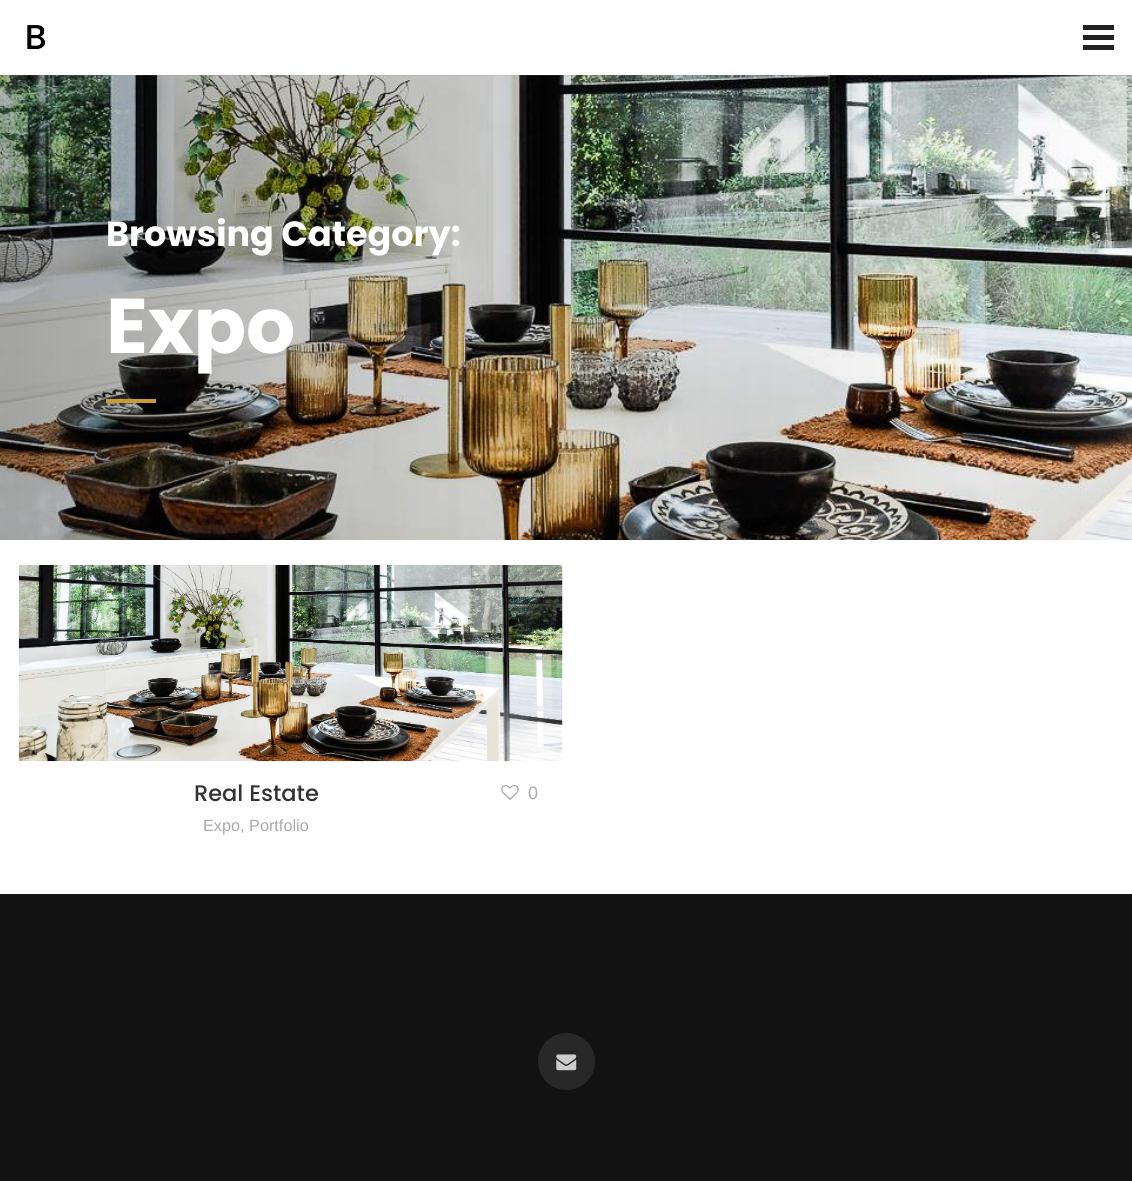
#include <cairo.h>
#include <math.h>
#include <stddef.h>

typedef struct { const char *family; double size; int italic, bold; unsigned color; } style_t;
static cairo_t *ctx;

static void ink(unsigned color) {
    cairo_set_source_rgb(ctx, (color >> 16) / 255.0, (color >> 8 & 255) / 255.0, (color & 255) / 255.0);
}

static void write(double x, double y, const char *s, const style_t *st) {
    cairo_select_font_face(ctx, st->family, st->italic ? CAIRO_FONT_SLANT_ITALIC : CAIRO_FONT_SLANT_NORMAL,
        st->bold ? CAIRO_FONT_WEIGHT_BOLD : CAIRO_FONT_WEIGHT_NORMAL);
    cairo_set_font_size(ctx, st->size);
    ink(st->color);
    cairo_move_to(ctx, x, y);
    cairo_show_text(ctx, s);
}

static void block(double x, double y, double w, double h, unsigned color) {
    ink(color);
    cairo_rectangle(ctx, x, y, w, h);
    cairo_fill(ctx);
}

static void paste(const char *path, double x, double y, double w, double h) {
    cairo_surface_t *image = cairo_image_surface_create_from_png(path);
    cairo_save(ctx);
    cairo_set_source_surface(ctx, image, x, y);
    cairo_rectangle(ctx, x, y, w, h);
    cairo_fill(ctx);
    cairo_restore(ctx);
    cairo_surface_destroy(image);
}

static const style_t s1 = {"Poppins", 35, 0, 1, 0xffffff};
static const style_t s2 = {"Poppins", 77.5, 0, 1, 0xffffff};
static const style_t s3 = {"Poppins Medium", 22.5, 0, 0, 0x333333};
static const style_t s4 = {"Liberation Sans", 16.25, 0, 0, 0xaaaaaa};
static const style_t s5 = {"Liberation Sans", 18, 0, 0, 0xaaaaaa};

int main(void) {
    cairo_surface_t *surface = cairo_image_surface_create(CAIRO_FORMAT_RGB24, 1132, 1181);
    ctx = cairo_create(surface);
    cairo_font_options_t *options = cairo_font_options_create();
    cairo_font_options_set_hint_metrics(options, CAIRO_HINT_METRICS_OFF);
    cairo_font_options_set_hint_style(options, CAIRO_HINT_STYLE_NONE);
    cairo_set_font_options(ctx, options);
    cairo_set_miter_limit(ctx, 4);
    ink(0xffffff);
    cairo_paint(ctx);
    paste("pic2.png", 0, 75, 1132, 465);
    cairo_set_source_rgba(ctx, 0.502, 0.502, 0.502, 0.15);
    cairo_new_path(ctx);
    cairo_move_to(ctx, 0, 75);
    cairo_line_to(ctx, 0, 76);
    cairo_line_to(ctx, 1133, 76);
    cairo_line_to(ctx, 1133, 1);
    cairo_line_to(ctx, 1132, 1);
    cairo_line_to(ctx, 1132, 75);
    cairo_close_path(ctx);
    cairo_fill(ctx);
    paste("pic1.png", 27, 25, 18, 24);
    block(1083, 35, 31, 5, 0x222222);
    block(1083, 25, 31, 5, 0x222222);
    block(1083, 45, 31, 5, 0x222222);
    write(106, 246, "Browsing Category:", &s1);
    write(106, 353, "Expo", &s2);
    block(106, 399, 50, 4, 0xc99b32);
    write(194, 801, "Real Estate", &s3);
    write(203, 831, "Expo, Portfolio", &s4);
    paste("pic3.png", 18, 565, 545, 197);
    paste("pic4.png", 501, 785, 18, 15);
    write(528, 799, "0", &s5);
    block(0, 895, 1132, 286, 0x121212);
    block(0, 894, 1132, 1, 0x181818);
    ink(0x282828);
    cairo_new_path(ctx);
    cairo_arc(ctx, 566.5, 1061.5, 28.5, 0, 2 * M_PI);
    cairo_fill(ctx);
    paste("pic5.png", 556, 1054, 21, 17);
    cairo_surface_write_to_png(surface, "screenshot.png");
    cairo_font_options_destroy(options);
    cairo_destroy(ctx);
    cairo_surface_destroy(surface);
    return 0;
}
